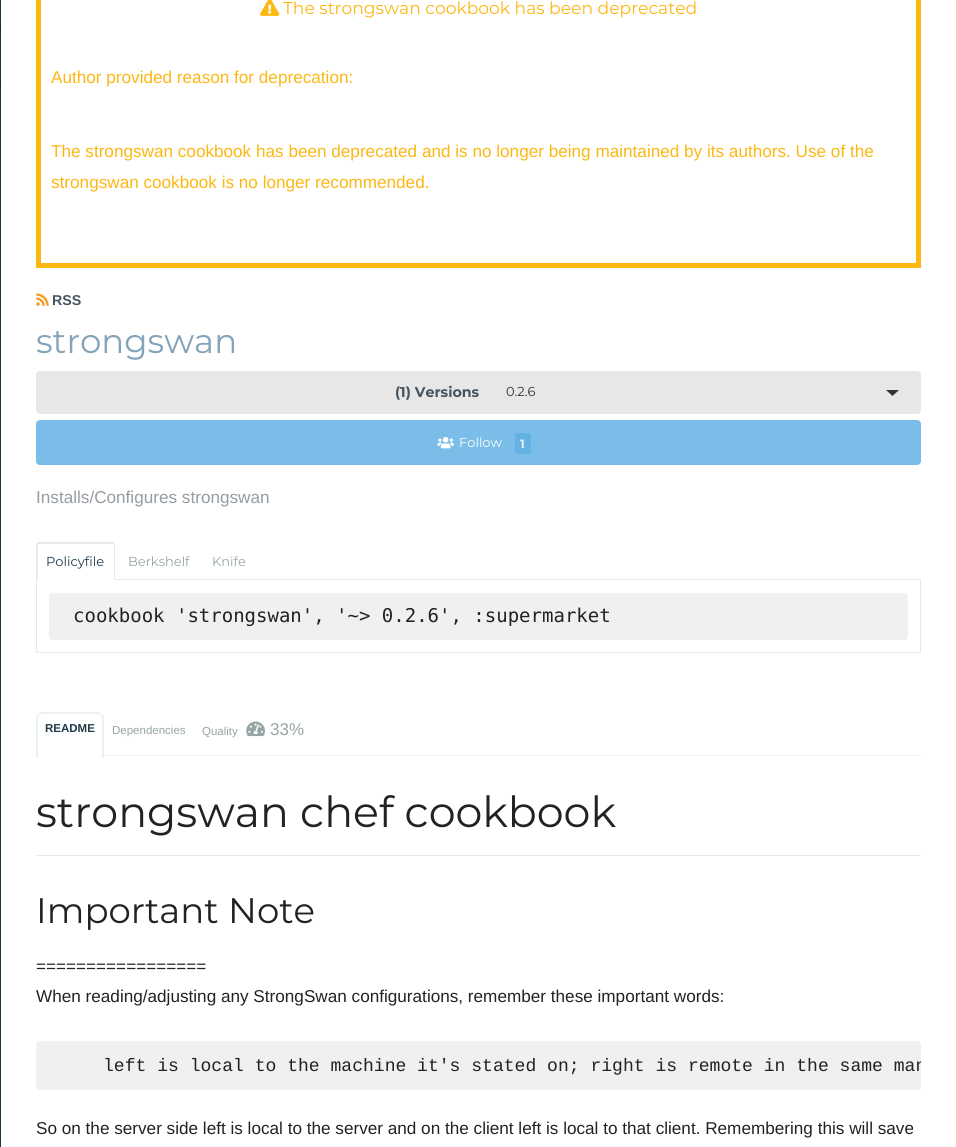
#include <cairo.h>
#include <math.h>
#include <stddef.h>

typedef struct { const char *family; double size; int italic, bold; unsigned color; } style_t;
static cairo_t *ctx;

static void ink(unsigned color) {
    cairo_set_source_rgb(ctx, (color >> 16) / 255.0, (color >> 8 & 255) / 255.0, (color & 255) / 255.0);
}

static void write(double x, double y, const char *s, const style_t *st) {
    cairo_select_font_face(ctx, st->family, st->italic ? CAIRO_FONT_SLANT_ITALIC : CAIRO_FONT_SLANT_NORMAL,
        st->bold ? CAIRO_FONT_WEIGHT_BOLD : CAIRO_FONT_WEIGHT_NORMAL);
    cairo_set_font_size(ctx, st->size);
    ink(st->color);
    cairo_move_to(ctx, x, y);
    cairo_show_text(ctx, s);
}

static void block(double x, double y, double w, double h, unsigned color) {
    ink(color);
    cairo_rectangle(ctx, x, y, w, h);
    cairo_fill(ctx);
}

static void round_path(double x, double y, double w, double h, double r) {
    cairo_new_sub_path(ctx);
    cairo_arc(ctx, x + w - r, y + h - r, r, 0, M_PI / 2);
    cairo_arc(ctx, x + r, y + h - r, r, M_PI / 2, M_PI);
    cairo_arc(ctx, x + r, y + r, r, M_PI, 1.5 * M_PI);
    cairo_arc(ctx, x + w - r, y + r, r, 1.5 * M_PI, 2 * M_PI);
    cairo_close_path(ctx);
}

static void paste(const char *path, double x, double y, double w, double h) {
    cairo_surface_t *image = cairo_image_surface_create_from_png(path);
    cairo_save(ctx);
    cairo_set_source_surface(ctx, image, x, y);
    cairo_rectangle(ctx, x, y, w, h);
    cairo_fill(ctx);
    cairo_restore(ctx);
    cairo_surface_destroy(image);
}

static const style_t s1 = {"Montserrat", 17.15, 0, 0, 0xfcb713};
static const style_t s2 = {"Liberation Sans", 17.15, 0, 0, 0xfcb713};
static const style_t s3 = {"Liberation Sans", 14.25, 0, 1, 0x46555f};
static const style_t s4 = {"Montserrat", 34, 0, 0, 0x84a4ba};
static const style_t s5 = {"Montserrat", 14.25, 0, 1, 0x46555f};
static const style_t s6 = {"Montserrat", 13, 0, 0, 0x333333};
static const style_t s7 = {"Montserrat", 13, 0, 0, 0xffffff};
static const style_t s8 = {"Montserrat", 12, 0, 1, 0xecf0f1};
static const style_t s9 = {"Liberation Sans", 17.15, 0, 0, 0x959ca2};
static const style_t s10 = {"Montserrat", 13, 0, 0, 0x1e3b4c};
static const style_t s11 = {"Montserrat", 13, 0, 0, 0x95a5a6};
static const style_t s12 = {"DejaVu Sans Mono", 19, 0, 0, 0x222222};
static const style_t s13 = {"Liberation Sans", 11.5, 0, 1, 0x1e3b4c};
static const style_t s14 = {"Liberation Sans", 11.5, 0, 0, 0x95a5a6};
static const style_t s15 = {"Liberation Sans", 17, 0, 0, 0x95a5a6};
static const style_t s16 = {"Montserrat", 42.75, 0, 0, 0x222222};
static const style_t s17 = {"Montserrat", 35.5, 0, 0, 0x222222};
static const style_t s18 = {"Liberation Sans", 17.15, 0, 0, 0x222222};
static const style_t s19 = {"Liberation Mono", 18.05, 0, 0, 0x222222};

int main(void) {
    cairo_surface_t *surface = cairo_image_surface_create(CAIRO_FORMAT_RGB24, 956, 1147);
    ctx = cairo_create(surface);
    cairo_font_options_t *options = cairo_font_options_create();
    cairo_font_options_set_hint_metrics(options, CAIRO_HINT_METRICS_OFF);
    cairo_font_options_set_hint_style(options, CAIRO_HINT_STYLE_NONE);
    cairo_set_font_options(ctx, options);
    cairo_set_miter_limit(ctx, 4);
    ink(0xffffff);
    cairo_paint(ctx);
    block(0, 0, 1, 1147, 0x1a3241);
    block(0, 28, 1, 1, 0x132631);
    block(0, 83, 1, 1, 0x132631);
    cairo_rectangle(ctx, 38.5, -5.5, 880, 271);
    ink(0xfcb713);
    cairo_set_line_width(ctx, 5);
    cairo_stroke(ctx);
    paste("pic1.png", 260, 0, 20, 16);
    write(283, 14, "The strongswan cookbook has been deprecated", &s1);
    write(51, 83, "Author provided reason for deprecation:", &s2);
    write(51, 157, "The strongswan cookbook has been deprecated and is no longer being maintained by its authors. Use of the", &s2);
    write(51, 188, "strongswan cookbook is no longer recommended.", &s2);
    paste("pic2.png", 36, 293, 13, 13);
    write(52, 305, "RSS", &s3);
    write(36, 353, "strongswan", &s4);
    ink(0xe7e7e7);
    round_path(36, 371, 885, 43, 4);
    cairo_fill(ctx);
    write(395, 397, "(1) Versions", &s5);
    write(506, 396, "0.2.6", &s6);
    cairo_new_path(ctx);
    cairo_move_to(ctx, 886, 390);
    cairo_line_to(ctx, 899, 390);
    cairo_line_to(ctx, 892.5, 396);
    cairo_close_path(ctx);
    cairo_fill(ctx);
    ink(0x79bde8);
    round_path(36, 420, 885, 45, 4);
    cairo_fill(ctx);
    paste("pic3.png", 437, 436, 17, 13);
    write(459, 447, "Follow", &s7);
    ink(0x63b2e4);
    round_path(515, 433, 16, 21, 2.5);
    cairo_fill(ctx);
    write(520, 448, "1", &s8);
    write(36, 503, "Installs/Configures strongswan", &s9);
    cairo_rectangle(ctx, 36.5, 579.5, 884, 73);
    ink(0xe6e8ea);
    cairo_set_line_width(ctx, 1);
    cairo_stroke(ctx);
    ink(0xffffff);
    cairo_new_path(ctx);
    cairo_move_to(ctx, 38.5, 543);
    cairo_line_to(ctx, 112.5, 543);
    cairo_curve_to(ctx, 114, 543, 115, 544, 115, 545.5);
    cairo_line_to(ctx, 115, 580);
    cairo_line_to(ctx, 36, 580);
    cairo_line_to(ctx, 36, 545.5);
    cairo_curve_to(ctx, 36, 544, 37, 543, 38.5, 543);
    cairo_close_path(ctx);
    cairo_fill(ctx);
    ink(0xe6e8ea);
    cairo_new_path(ctx);
    cairo_move_to(ctx, 39, 544);
    cairo_line_to(ctx, 38, 545);
    cairo_line_to(ctx, 37, 543);
    cairo_line_to(ctx, 37, 542);
    cairo_line_to(ctx, 114, 542);
    cairo_line_to(ctx, 114, 543);
    cairo_line_to(ctx, 113, 544);
    cairo_close_path(ctx);
    cairo_fill(ctx);
    cairo_new_path(ctx);
    cairo_move_to(ctx, 115, 580);
    cairo_line_to(ctx, 115, 545);
    cairo_line_to(ctx, 114.5, 543);
    cairo_line_to(ctx, 113.5, 544);
    cairo_line_to(ctx, 114, 545);
    cairo_line_to(ctx, 114, 579);
    cairo_close_path(ctx);
    cairo_fill(ctx);
    ink(0xffffff);
    cairo_new_path(ctx);
    cairo_move_to(ctx, 115, 580);
    cairo_line_to(ctx, 114, 579);
    cairo_line_to(ctx, 38, 579);
    cairo_line_to(ctx, 38, 578);
    cairo_line_to(ctx, 36, 580);
    cairo_close_path(ctx);
    cairo_fill(ctx);
    ink(0xe6e8ea);
    cairo_new_path(ctx);
    cairo_move_to(ctx, 36, 580);
    cairo_line_to(ctx, 36, 544);
    cairo_line_to(ctx, 37, 543);
    cairo_line_to(ctx, 38.5, 544.5);
    cairo_line_to(ctx, 38, 545);
    cairo_line_to(ctx, 38, 578);
    cairo_close_path(ctx);
    cairo_fill(ctx);
    write(46, 566, "Policyfile", &s10);
    write(128, 566, "Berkshelf", &s11);
    write(212, 566, "Knife", &s11);
    ink(0xf0f0f0);
    round_path(49, 593, 859, 47, 4);
    cairo_fill(ctx);
    write(73, 622, "cookbook 'strongswan', '~> 0.2.6', :supermarket", &s12);
    block(104, 755, 817, 1, 0xecf0f1);
    cairo_set_fill_rule(ctx, CAIRO_FILL_RULE_EVEN_ODD);
    cairo_new_path(ctx);
    cairo_move_to(ctx, 42, 712);
    cairo_line_to(ctx, 98, 712);
    cairo_curve_to(ctx, 101, 712, 104, 715, 104, 718);
    cairo_line_to(ctx, 104, 758);
    cairo_line_to(ctx, 36, 758);
    cairo_line_to(ctx, 36, 718);
    cairo_curve_to(ctx, 36, 715, 39, 712, 42, 712);
    cairo_close_path(ctx);
    cairo_move_to(ctx, 42, 714);
    cairo_line_to(ctx, 98, 714);
    cairo_curve_to(ctx, 100, 714, 102, 716, 102, 718);
    cairo_line_to(ctx, 102, 758);
    cairo_line_to(ctx, 38, 758);
    cairo_line_to(ctx, 38, 718);
    cairo_curve_to(ctx, 38, 716, 40, 714, 42, 714);
    cairo_close_path(ctx);
    cairo_fill(ctx);
    write(45, 732, "README", &s13);
    write(112, 734, "Dependencies", &s14);
    write(202, 735, "Quality", &s14);
    paste("pic4.png", 246, 721, 19, 16);
    write(270, 735, "33%", &s15);
    block(36, 855, 885, 1, 0xe6e8ea);
    write(36, 827, "strongswan chef cookbook", &s16);
    write(36, 923, "Important Note", &s17);
    write(36, 972, "=================", &s18);
    write(36, 1002, "When reading/adjusting any StrongSwan configurations, remember these important words:", &s18);
    ink(0xf0f0f0);
    round_path(36, 1041, 885, 49, 4);
    cairo_fill(ctx);
    cairo_save(ctx);
    cairo_set_fill_rule(ctx, CAIRO_FILL_RULE_WINDING);
    round_path(36, 1041, 885, 49, 4);
    cairo_clip(ctx);
    write(103, 1071, "left is local to the machine it's stated on; right is remote in the same man", &s19);
    cairo_restore(ctx);
    write(36, 1134, "So on the server side left is local to the server and on the client left is local to that client. Remembering this will save", &s18);
    cairo_surface_write_to_png(surface, "screenshot.png");
    cairo_font_options_destroy(options);
    cairo_destroy(ctx);
    cairo_surface_destroy(surface);
    return 0;
}
